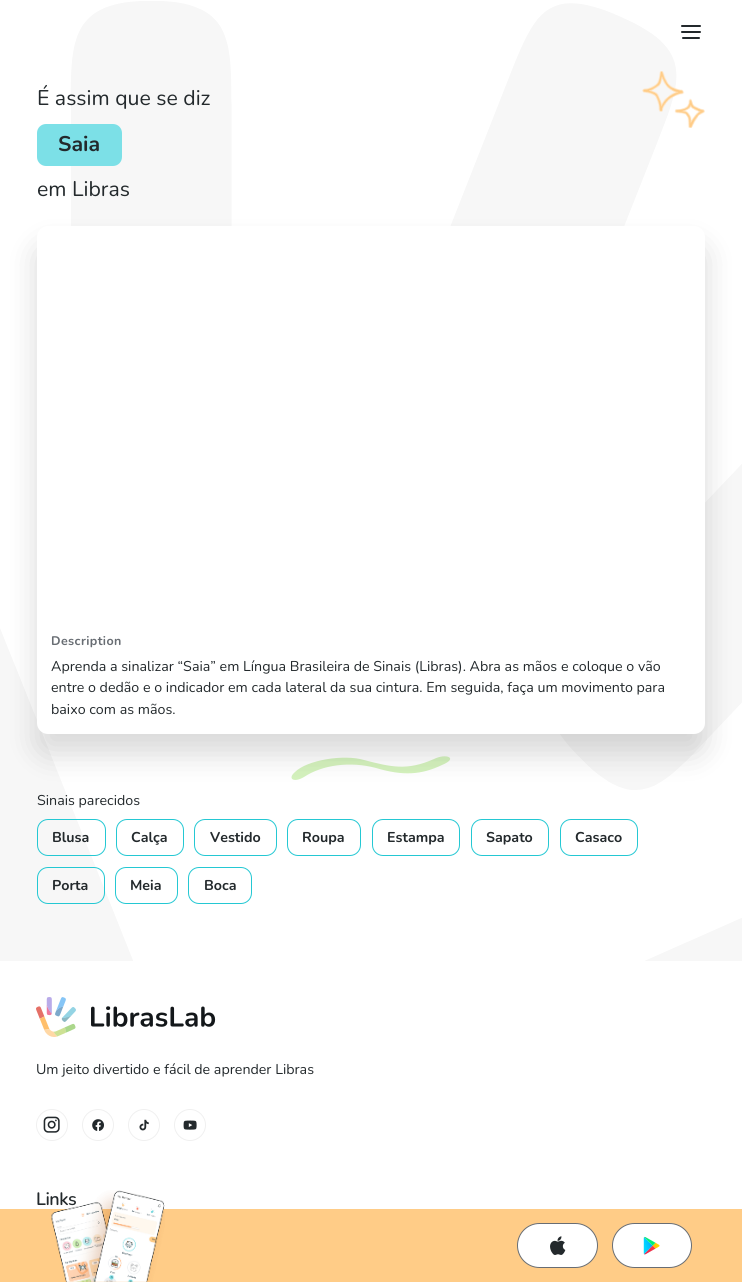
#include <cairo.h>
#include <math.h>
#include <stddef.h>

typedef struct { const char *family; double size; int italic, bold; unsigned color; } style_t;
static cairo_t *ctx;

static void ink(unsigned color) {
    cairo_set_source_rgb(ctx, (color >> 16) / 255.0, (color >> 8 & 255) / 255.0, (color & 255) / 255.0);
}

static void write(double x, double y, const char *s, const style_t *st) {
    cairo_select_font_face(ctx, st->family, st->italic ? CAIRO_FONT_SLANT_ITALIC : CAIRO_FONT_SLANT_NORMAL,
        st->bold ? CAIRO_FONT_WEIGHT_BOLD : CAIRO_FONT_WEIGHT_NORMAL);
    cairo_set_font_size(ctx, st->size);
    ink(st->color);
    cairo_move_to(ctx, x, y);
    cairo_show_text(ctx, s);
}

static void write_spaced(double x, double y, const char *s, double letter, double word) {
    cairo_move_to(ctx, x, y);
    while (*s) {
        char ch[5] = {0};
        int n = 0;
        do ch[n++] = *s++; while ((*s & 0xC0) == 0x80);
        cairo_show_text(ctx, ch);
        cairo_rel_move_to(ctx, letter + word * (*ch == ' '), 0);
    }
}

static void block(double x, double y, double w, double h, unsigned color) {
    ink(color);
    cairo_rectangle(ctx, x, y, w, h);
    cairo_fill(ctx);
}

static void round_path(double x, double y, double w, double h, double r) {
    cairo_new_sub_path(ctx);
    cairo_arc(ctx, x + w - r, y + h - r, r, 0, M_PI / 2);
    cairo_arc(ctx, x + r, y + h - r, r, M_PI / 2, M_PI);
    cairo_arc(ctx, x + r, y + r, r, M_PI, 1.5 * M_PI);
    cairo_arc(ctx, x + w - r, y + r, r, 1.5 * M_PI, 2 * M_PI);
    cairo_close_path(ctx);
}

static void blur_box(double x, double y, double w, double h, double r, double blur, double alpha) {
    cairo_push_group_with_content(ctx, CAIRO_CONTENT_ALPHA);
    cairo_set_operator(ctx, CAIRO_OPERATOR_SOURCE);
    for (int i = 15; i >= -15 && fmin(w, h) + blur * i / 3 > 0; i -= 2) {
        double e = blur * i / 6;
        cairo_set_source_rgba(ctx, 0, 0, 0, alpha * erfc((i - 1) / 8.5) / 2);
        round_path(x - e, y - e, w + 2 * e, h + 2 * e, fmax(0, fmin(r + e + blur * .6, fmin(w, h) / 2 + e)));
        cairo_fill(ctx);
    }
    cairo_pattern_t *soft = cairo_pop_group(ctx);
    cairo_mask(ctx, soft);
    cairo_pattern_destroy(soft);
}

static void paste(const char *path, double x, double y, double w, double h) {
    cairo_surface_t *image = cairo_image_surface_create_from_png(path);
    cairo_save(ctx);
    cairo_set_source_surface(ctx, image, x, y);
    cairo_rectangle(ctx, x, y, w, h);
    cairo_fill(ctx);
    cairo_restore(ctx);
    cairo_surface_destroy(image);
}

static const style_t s1 = {"Nunito", 21.25, 0, 0, 0x23292c};
static const style_t s2 = {"Nunito", 21.25, 0, 1, 0x23292c};
static const style_t s3 = {"Nunito", 14.25, 0, 0, 0x23292c};
static const style_t s4 = {"Nunito", 14.25, 0, 1, 0x23292c};

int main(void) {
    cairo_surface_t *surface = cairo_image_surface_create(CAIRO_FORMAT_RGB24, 742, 1282);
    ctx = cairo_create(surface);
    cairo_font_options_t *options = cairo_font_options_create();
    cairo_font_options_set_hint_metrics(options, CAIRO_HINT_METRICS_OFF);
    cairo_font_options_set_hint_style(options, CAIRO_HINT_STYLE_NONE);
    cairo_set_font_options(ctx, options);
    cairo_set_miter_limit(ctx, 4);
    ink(0xffffff);
    cairo_paint(ctx);
    paste("pic1.png", 0, 1, 742, 960);
    ink(0x23292c);
    round_path(681, 25, 20, 2, 1);
    cairo_fill(ctx);
    round_path(681, 31, 20, 2, 1);
    cairo_fill(ctx);
    round_path(682, 37, 18, 2, 1);
    cairo_fill(ctx);
    write(37, 105, "É assim que se diz", &s1);
    ink(0x7ce0e7);
    round_path(37, 124, 85, 42, 9);
    cairo_fill(ctx);
    write(58, 151, "Saia", &s2);
    write(37, 196, "em Libras", &s1);
    paste("pic2.png", 642, 71, 63, 57);
    ink(0xd4f2bd);
    cairo_new_path(ctx);
    cairo_move_to(ctx, 434, 759);
    cairo_curve_to(ctx, 407, 771, 391, 767, 364, 760);
    cairo_curve_to(ctx, 344, 754, 307, 760, 295, 772);
    cairo_curve_to(ctx, 287, 779, 294, 783, 304, 777);
    cairo_curve_to(ctx, 322, 765, 350, 761, 376, 768);
    cairo_curve_to(ctx, 403, 776, 421, 775, 442, 765);
    cairo_curve_to(ctx, 459, 758, 446, 753, 434, 759);
    cairo_close_path(ctx);
    cairo_fill(ctx);
    ink(0x000000);
    blur_box(37, 246, 668, 508, 11, 15, 0.15);
    ink(0xffffff);
    round_path(37, 226, 668, 508, 11);
    cairo_fill(ctx);
    cairo_select_font_face(ctx, "Nunito", CAIRO_FONT_SLANT_NORMAL, CAIRO_FONT_WEIGHT_BOLD);
    cairo_set_font_size(ctx, 12.5);
    ink(0x686d73);
    write_spaced(51, 645, "Description", 0.4, 0);
    write(51, 671, "Aprenda a sinalizar “Saia” em Língua Brasileira de Sinais (Libras). Abra as mãos e coloque o vão", &s3);
    write(51, 692, "entre o dedão e o indicador em cada lateral da sua cintura. Em seguida, faça um movimento para", &s3);
    write(51, 714, "baixo com as mãos.", &s3);
    write(37, 805, "Sinais parecidos", &s3);
    round_path(37.5, 819.5, 68, 36, 10.5);
    ink(0x24c8d3);
    cairo_set_line_width(ctx, 1);
    cairo_stroke(ctx);
    write(52, 842, "Blusa", &s4);
    round_path(116.5, 819.5, 67, 36, 10.5);
    ink(0x24c8d3);
    cairo_stroke(ctx);
    write(131, 842, "Calça", &s4);
    round_path(194.5, 819.5, 82, 36, 10.5);
    ink(0x24c8d3);
    cairo_stroke(ctx);
    write(210, 842, "Vestido", &s4);
    round_path(287.5, 819.5, 73, 36, 10.5);
    ink(0x24c8d3);
    cairo_stroke(ctx);
    write(302, 842, "Roupa", &s4);
    round_path(372.5, 819.5, 87, 36, 10.5);
    ink(0x24c8d3);
    cairo_stroke(ctx);
    write(387, 842, "Estampa", &s4);
    round_path(471.5, 819.5, 77, 36, 10.5);
    ink(0x24c8d3);
    cairo_stroke(ctx);
    write(486, 842, "Sapato", &s4);
    round_path(560.5, 819.5, 77, 36, 10.5);
    ink(0x24c8d3);
    cairo_stroke(ctx);
    write(575, 842, "Casaco", &s4);
    round_path(37.5, 867.5, 67, 36, 10.5);
    ink(0x24c8d3);
    cairo_stroke(ctx);
    write(52, 890, "Porta", &s4);
    round_path(115.5, 867.5, 62, 36, 10.5);
    ink(0x24c8d3);
    cairo_stroke(ctx);
    write(130, 890, "Meia", &s4);
    round_path(188.5, 867.5, 63, 36, 10.5);
    ink(0x24c8d3);
    cairo_stroke(ctx);
    write(204, 890, "Boca", &s4);
    block(0, 1209, 742, 73, 0xffcc87);
    cairo_select_font_face(ctx, "Nunito SemiBold", CAIRO_FONT_SLANT_NORMAL, CAIRO_FONT_WEIGHT_NORMAL);
    cairo_set_font_size(ctx, 18);
    ink(0x23292c);
    write_spaced(36, 1205, "Links", -0.5, 0);
    paste("pic3.png", 51, 1190, 114, 92);
    ink(0xffffff);
    round_path(517.5, 1223.5, 80, 44, 22);
    cairo_fill_preserve(ctx);
    ink(0x686d73);
    cairo_stroke(ctx);
    paste("pic4.png", 550, 1236, 16, 19);
    ink(0xffffff);
    round_path(612.5, 1223.5, 79, 44, 22);
    cairo_fill_preserve(ctx);
    ink(0x686d73);
    cairo_stroke(ctx);
    paste("pic5.png", 643, 1236, 17, 19);
    paste("pic6.png", 36, 997, 180, 40);
    write(36, 1074, "Um jeito divertido e fácil de aprender Libras", &s3);
    cairo_new_path(ctx);
    cairo_arc(ctx, 52, 1125, 15.5, 0, 2 * M_PI);
    ink(0xf0f0f0);
    cairo_stroke(ctx);
    paste("pic7.png", 43, 1116, 17, 17);
    cairo_arc(ctx, 98, 1125, 15.5, 0, 2 * M_PI);
    cairo_stroke(ctx);
    paste("pic8.png", 92, 1119, 12, 12);
    cairo_arc(ctx, 144, 1125, 15.5, 0, 2 * M_PI);
    cairo_stroke(ctx);
    paste("pic9.png", 139, 1119, 10, 12);
    cairo_arc(ctx, 190, 1125, 15.5, 0, 2 * M_PI);
    cairo_stroke(ctx);
    paste("pic10.png", 183, 1120, 14, 10);
    cairo_surface_write_to_png(surface, "screenshot.png");
    cairo_font_options_destroy(options);
    cairo_destroy(ctx);
    cairo_surface_destroy(surface);
    return 0;
}
